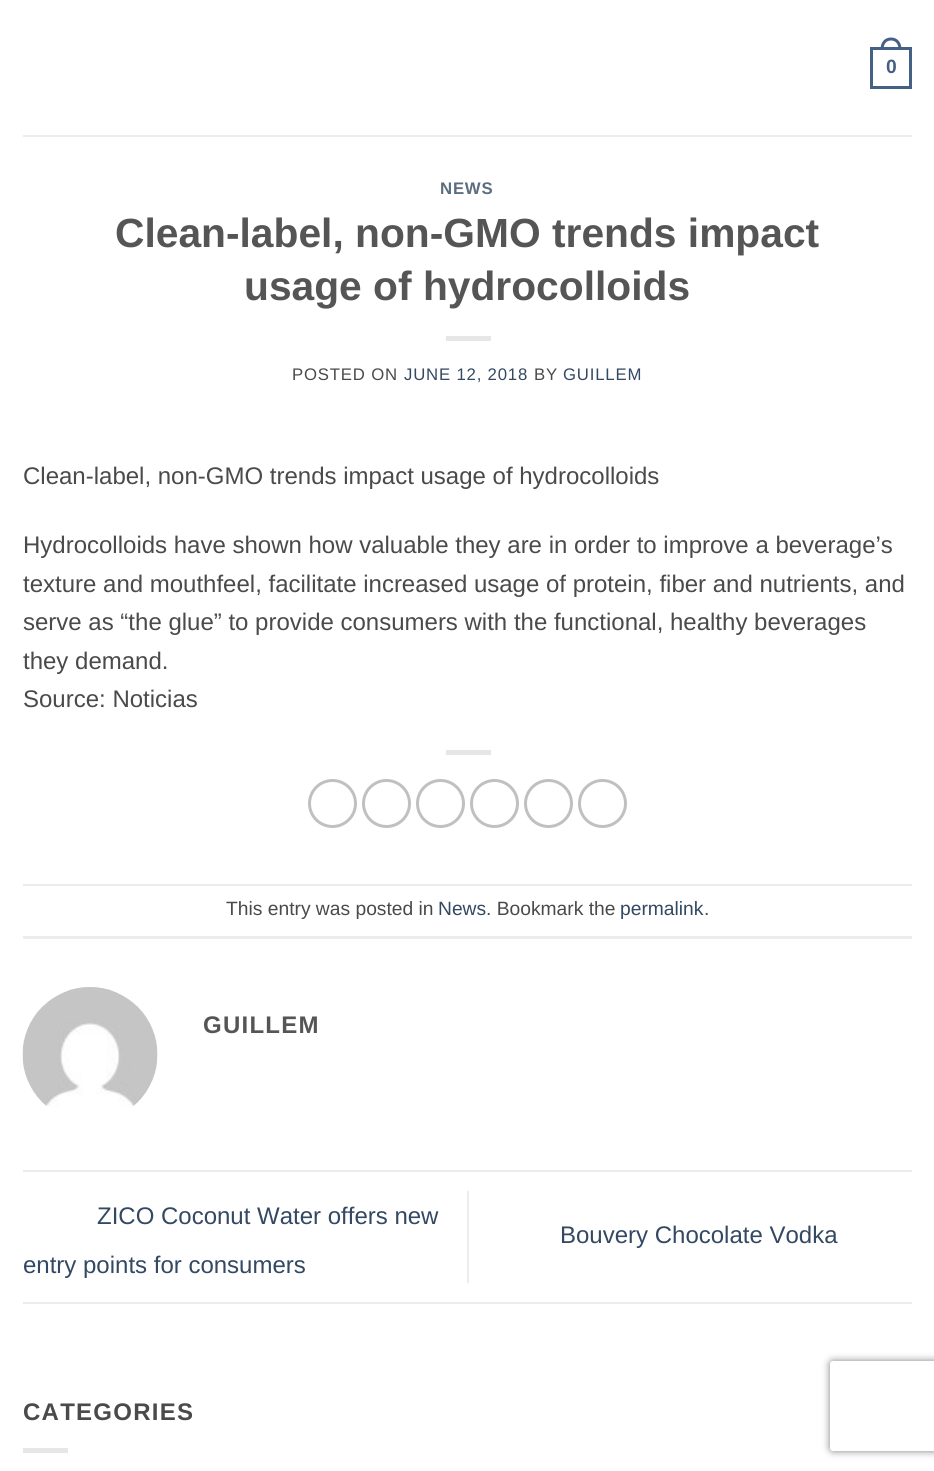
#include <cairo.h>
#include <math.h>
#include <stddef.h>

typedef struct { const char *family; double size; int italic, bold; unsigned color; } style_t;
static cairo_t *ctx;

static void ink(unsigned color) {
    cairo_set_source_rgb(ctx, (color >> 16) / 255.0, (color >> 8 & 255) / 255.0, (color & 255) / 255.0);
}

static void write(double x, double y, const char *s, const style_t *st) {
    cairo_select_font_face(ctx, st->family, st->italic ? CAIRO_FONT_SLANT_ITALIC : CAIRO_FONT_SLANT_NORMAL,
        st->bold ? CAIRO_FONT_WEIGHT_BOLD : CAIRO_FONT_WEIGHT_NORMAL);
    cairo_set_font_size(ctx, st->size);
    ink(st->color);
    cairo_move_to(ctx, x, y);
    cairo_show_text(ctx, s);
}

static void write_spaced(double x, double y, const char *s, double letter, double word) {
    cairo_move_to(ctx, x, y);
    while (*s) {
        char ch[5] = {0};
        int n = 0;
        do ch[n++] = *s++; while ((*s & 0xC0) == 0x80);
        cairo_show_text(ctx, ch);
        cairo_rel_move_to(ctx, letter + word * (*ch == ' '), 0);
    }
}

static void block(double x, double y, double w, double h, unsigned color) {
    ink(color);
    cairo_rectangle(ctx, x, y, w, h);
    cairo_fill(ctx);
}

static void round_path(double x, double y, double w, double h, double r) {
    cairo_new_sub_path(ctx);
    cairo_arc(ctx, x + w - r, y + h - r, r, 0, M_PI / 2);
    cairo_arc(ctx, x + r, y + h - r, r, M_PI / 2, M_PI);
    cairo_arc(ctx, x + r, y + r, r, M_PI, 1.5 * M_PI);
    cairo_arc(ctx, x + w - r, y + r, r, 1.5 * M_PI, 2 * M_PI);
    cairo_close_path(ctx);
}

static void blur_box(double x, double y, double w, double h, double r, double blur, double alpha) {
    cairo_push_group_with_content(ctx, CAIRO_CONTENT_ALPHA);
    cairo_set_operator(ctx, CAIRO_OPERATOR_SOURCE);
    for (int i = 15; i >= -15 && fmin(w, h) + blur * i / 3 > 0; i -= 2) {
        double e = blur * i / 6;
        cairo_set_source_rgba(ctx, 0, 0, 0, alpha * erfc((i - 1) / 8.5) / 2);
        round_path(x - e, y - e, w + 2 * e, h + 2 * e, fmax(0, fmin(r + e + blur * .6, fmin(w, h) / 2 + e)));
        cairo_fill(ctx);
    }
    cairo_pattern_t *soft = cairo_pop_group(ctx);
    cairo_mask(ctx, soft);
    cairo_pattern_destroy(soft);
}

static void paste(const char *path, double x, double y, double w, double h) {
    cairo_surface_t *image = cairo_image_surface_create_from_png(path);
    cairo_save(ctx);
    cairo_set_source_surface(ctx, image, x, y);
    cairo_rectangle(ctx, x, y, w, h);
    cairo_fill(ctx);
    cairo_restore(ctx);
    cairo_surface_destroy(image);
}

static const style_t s1 = {"Liberation Sans", 19.25, 0, 1, 0x446084};
static const style_t s2 = {"Liberation Sans", 40.75, 0, 1, 0x555555};
static const style_t s3 = {"Liberation Sans", 24, 0, 0, 0x4a4a4a};
static const style_t s4 = {"Liberation Sans", 19.25, 0, 0, 0x4a4a4a};
static const style_t s5 = {"Liberation Sans", 19.25, 0, 0, 0x334862};
static const style_t s6 = {"Liberation Sans", 24, 0, 0, 0x334862};

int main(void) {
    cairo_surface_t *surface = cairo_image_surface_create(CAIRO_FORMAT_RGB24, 934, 1471);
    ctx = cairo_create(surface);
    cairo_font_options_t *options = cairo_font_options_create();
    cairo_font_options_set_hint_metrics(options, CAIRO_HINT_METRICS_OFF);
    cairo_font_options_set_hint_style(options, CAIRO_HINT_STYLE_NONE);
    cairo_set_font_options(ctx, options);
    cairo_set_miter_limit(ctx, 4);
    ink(0xffffff);
    cairo_paint(ctx);
    cairo_rectangle(ctx, 871.5, 48.5, 39, 39);
    ink(0x446084);
    cairo_set_line_width(ctx, 3);
    cairo_stroke(ctx);
    cairo_set_fill_rule(ctx, CAIRO_FILL_RULE_EVEN_ODD);
    cairo_new_path(ctx);
    cairo_move_to(ctx, 891, 37.5);
    cairo_curve_to(ctx, 898, 37.5, 901.5, 43, 901.5, 49.5);
    cairo_line_to(ctx, 880.5, 49.5);
    cairo_curve_to(ctx, 880.5, 43, 884, 37.5, 891, 37.5);
    cairo_close_path(ctx);
    cairo_move_to(ctx, 891, 40.5);
    cairo_curve_to(ctx, 896.5, 40.5, 898.5, 45, 898.5, 49.5);
    cairo_line_to(ctx, 883.5, 49.5);
    cairo_curve_to(ctx, 883.5, 45, 885.5, 40.5, 891, 40.5);
    cairo_close_path(ctx);
    cairo_fill(ctx);
    write(886, 73, "0", &s1);
    block(23, 135, 889, 2, 0xededed);
    cairo_set_font_size(ctx, 16.75);
    ink(0x5c6d81);
    write_spaced(440, 194, "NEWS", 0.8, 0);
    write(115, 247, "Clean-label, non-GMO trends impact", &s2);
    write(244, 300, "usage of hydrocolloids", &s2);
    block(446, 336, 45, 5, 0xe6e6e6);
    cairo_select_font_face(ctx, "Liberation Sans", CAIRO_FONT_SLANT_NORMAL, CAIRO_FONT_WEIGHT_NORMAL);
    cairo_set_font_size(ctx, 16.75);
    ink(0x4a4a4a);
    write_spaced(292, 380, "POSTED ON", 0.8, 0);
    ink(0x334862);
    write_spaced(404, 380, "JUNE 12, 2018", 0.8, 0);
    ink(0x4a4a4a);
    write_spaced(534, 380, "BY", 0.8, 0);
    ink(0x334862);
    write_spaced(563, 380, "GUILLEM", 0.8, 0);
    write(23, 484, "Clean-label, non-GMO trends impact usage of hydrocolloids", &s3);
    write(23, 553, "Hydrocolloids have shown how valuable they are in order to improve a beverage’s", &s3);
    write(23, 592, "texture and mouthfeel, facilitate increased usage of protein, fiber and nutrients, and", &s3);
    write(23, 630, "serve as “the glue” to provide consumers with the functional, healthy beverages", &s3);
    write(23, 669, "they demand.", &s3);
    write(23, 707, "Source: Noticias", &s3);
    block(446, 750, 45, 5, 0xe6e6e6);
    cairo_new_path(ctx);
    cairo_arc(ctx, 332.5, 803.5, 23, 0, 2 * M_PI);
    ink(0xc0c0c0);
    cairo_stroke(ctx);
    cairo_arc(ctx, 386.5, 803.5, 23, 0, 2 * M_PI);
    cairo_stroke(ctx);
    cairo_arc(ctx, 440.5, 803.5, 23, 0, 2 * M_PI);
    cairo_stroke(ctx);
    cairo_arc(ctx, 494.5, 803.5, 23, 0, 2 * M_PI);
    cairo_stroke(ctx);
    cairo_arc(ctx, 548.5, 803.5, 23, 0, 2 * M_PI);
    cairo_stroke(ctx);
    cairo_arc(ctx, 602.5, 803.5, 23, 0, 2 * M_PI);
    cairo_stroke(ctx);
    block(23, 884, 889, 2, 0xececec);
    block(23, 936, 889, 3, 0xececec);
    write(226, 915, "This entry was posted in", &s4);
    write(438, 915, "News", &s5);
    write(486, 915, ". Bookmark the", &s4);
    write(620, 915, "permalink", &s5);
    write(704, 915, ".", &s4);
    paste("pic1.png", 22, 987, 136, 120);
    cairo_select_font_face(ctx, "Liberation Sans", CAIRO_FONT_SLANT_NORMAL, CAIRO_FONT_WEIGHT_BOLD);
    cairo_set_font_size(ctx, 24);
    ink(0x555555);
    write_spaced(203, 1033, "GUILLEM", 1.25, 0);
    block(23, 1170, 889, 2, 0xececec);
    block(23, 1302, 889, 2, 0xececec);
    write(97, 1224, "ZICO Coconut Water offers new", &s6);
    write(23, 1273, "entry points for consumers", &s6);
    block(467, 1191, 2, 92, 0xececec);
    write(560, 1243, "Bouvery Chocolate Vodka", &s6);
    cairo_select_font_face(ctx, "Liberation Sans", CAIRO_FONT_SLANT_NORMAL, CAIRO_FONT_WEIGHT_BOLD);
    ink(0x4a4a4a);
    write_spaced(23, 1420, "CATEGORIES", 1.25, 0);
    block(23, 1448, 45, 5, 0xe6e6e6);
    cairo_save(ctx);
    cairo_new_path(ctx);
    cairo_move_to(ctx, 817, 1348);
    cairo_line_to(ctx, 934, 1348);
    cairo_line_to(ctx, 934, 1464);
    cairo_line_to(ctx, 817, 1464);
    cairo_close_path(ctx);
    cairo_move_to(ctx, 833, 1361);
    cairo_line_to(ctx, 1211, 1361);
    cairo_curve_to(ctx, 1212.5, 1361, 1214, 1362.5, 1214, 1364);
    cairo_line_to(ctx, 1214, 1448);
    cairo_curve_to(ctx, 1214, 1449.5, 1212.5, 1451, 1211, 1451);
    cairo_line_to(ctx, 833, 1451);
    cairo_curve_to(ctx, 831.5, 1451, 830, 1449.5, 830, 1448);
    cairo_line_to(ctx, 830, 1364);
    cairo_curve_to(ctx, 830, 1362.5, 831.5, 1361, 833, 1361);
    cairo_close_path(ctx);
    cairo_clip(ctx);
    ink(0x808080);
    blur_box(830, 1361, 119, 90, 3, 4, 1);
    cairo_restore(ctx);
    cairo_surface_write_to_png(surface, "screenshot.png");
    cairo_font_options_destroy(options);
    cairo_destroy(ctx);
    cairo_surface_destroy(surface);
    return 0;
}
